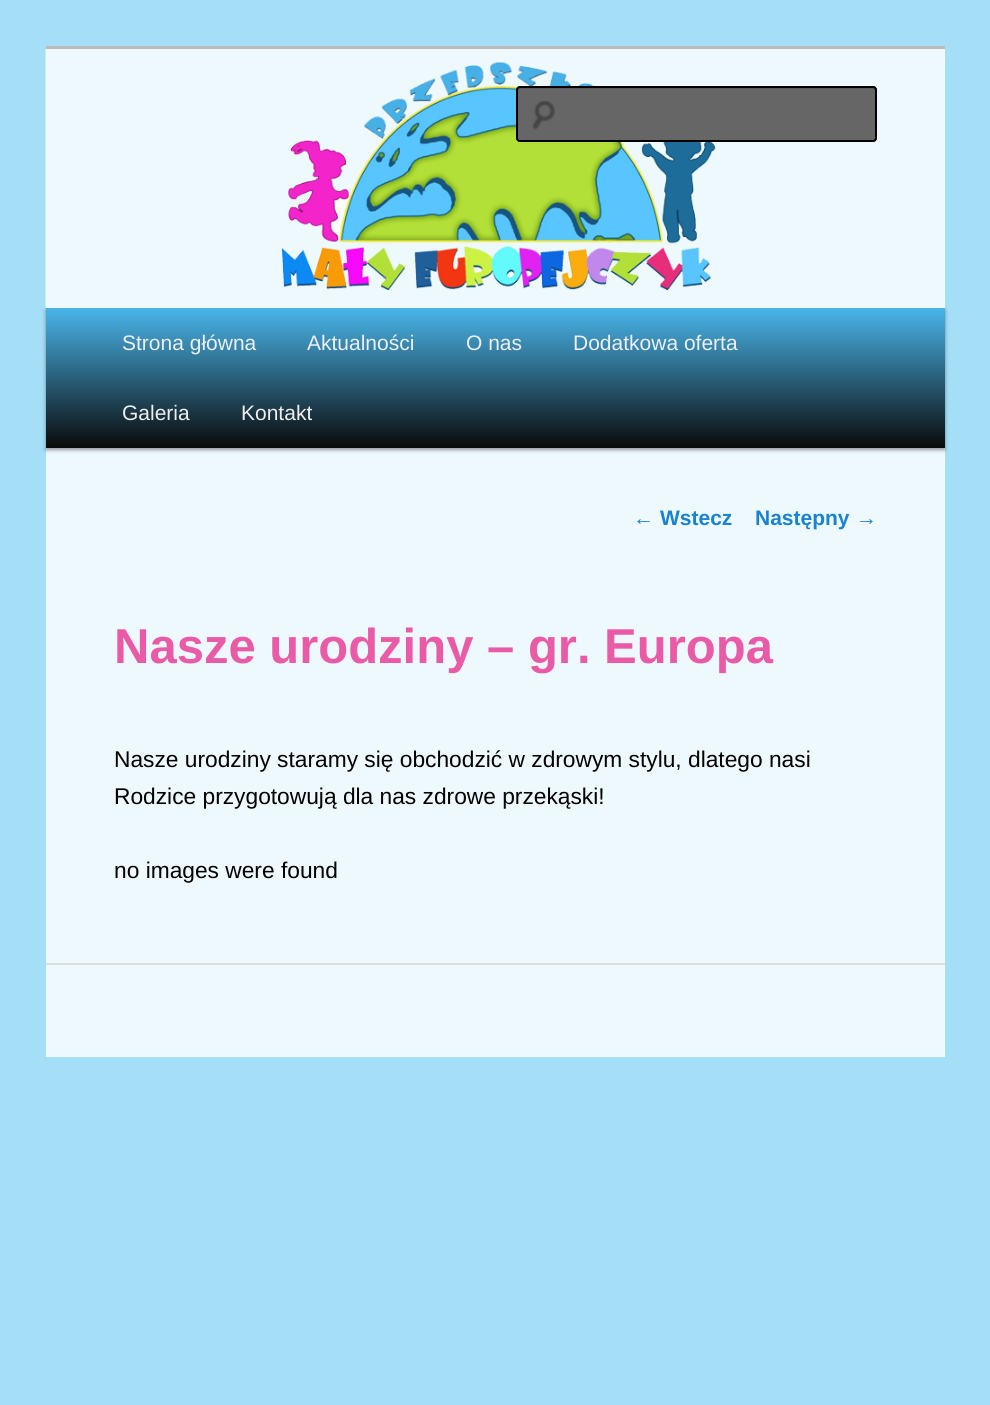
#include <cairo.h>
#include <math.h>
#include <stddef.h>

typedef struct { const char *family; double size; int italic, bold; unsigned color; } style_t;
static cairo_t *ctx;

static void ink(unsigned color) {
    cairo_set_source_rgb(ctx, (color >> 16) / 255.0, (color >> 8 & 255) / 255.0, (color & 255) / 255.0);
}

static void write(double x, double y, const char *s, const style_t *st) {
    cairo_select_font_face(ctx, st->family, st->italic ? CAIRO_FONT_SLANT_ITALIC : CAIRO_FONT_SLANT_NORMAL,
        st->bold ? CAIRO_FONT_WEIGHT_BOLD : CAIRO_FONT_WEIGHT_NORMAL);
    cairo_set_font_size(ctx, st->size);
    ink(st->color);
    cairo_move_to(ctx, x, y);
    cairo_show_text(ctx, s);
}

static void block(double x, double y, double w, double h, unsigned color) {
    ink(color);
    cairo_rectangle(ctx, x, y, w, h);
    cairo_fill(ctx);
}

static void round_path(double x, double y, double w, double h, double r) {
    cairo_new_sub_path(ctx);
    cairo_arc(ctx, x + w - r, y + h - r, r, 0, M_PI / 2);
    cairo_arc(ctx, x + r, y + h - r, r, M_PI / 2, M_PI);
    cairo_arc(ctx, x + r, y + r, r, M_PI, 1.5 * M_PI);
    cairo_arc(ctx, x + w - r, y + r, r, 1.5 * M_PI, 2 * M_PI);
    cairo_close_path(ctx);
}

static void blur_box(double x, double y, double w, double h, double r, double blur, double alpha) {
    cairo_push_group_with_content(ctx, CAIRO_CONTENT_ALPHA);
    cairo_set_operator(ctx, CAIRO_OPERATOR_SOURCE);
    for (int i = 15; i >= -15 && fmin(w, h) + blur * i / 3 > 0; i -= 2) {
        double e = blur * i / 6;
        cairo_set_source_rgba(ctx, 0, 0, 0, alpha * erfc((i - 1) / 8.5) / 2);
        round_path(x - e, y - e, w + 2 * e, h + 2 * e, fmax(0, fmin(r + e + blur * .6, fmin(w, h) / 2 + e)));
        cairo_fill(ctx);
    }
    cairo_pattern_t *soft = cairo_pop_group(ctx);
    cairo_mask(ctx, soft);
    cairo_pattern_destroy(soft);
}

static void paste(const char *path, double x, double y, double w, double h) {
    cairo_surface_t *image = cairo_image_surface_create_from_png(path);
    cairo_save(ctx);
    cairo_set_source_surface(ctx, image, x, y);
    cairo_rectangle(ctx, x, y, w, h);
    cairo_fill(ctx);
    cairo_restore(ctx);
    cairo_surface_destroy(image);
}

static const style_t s1 = {"Liberation Sans", 21, 0, 0, 0xeeeeee};
static const style_t s2 = {"Liberation Sans", 21, 0, 0, 0x1982d1};
static const style_t s3 = {"Liberation Sans", 21, 0, 1, 0x1982d1};
static const style_t s4 = {"Liberation Sans", 49, 0, 1, 0xe95ba7};
static const style_t s5 = {"Liberation Sans", 22.75, 0, 0, 0x000000};

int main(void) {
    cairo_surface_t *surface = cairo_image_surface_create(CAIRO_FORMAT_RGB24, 990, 1405);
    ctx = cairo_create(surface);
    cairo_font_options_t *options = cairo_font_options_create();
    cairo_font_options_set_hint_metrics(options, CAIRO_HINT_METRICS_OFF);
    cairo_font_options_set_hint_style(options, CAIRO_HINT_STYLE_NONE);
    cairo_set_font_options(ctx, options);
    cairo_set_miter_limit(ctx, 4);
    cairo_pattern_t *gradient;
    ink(0xa5dff7);
    cairo_paint(ctx);
    block(46, 448, 899, 609, 0xeef9fe);
    block(46, 46, 899, 3, 0xbbbbbb);
    ink(0x000000);
    blur_box(46, 310, 899, 140, 0, 2, 0.4);
    paste("pic1.png", 45, 49, 900, 259);
    ink(0x666666);
    round_path(516, 86, 361, 56, 4);
    cairo_fill(ctx);
    paste("pic2.png", 532, 100, 23, 30);
    ink(0x5c5c5c);
    cairo_new_path(ctx);
    cairo_move_to(ctx, 520, 89);
    cairo_line_to(ctx, 873, 89);
    cairo_curve_to(ctx, 874, 89, 875, 90, 875, 91);
    cairo_curve_to(ctx, 875, 90, 875, 88, 873, 88);
    cairo_line_to(ctx, 520, 88);
    cairo_curve_to(ctx, 518, 88, 518, 90, 518, 91);
    cairo_curve_to(ctx, 518, 90, 519, 89, 520, 89);
    cairo_close_path(ctx);
    cairo_fill(ctx);
    round_path(517, 87, 359, 54, 3);
    ink(0x000000);
    cairo_stroke(ctx);
    gradient = cairo_pattern_create_linear(495, 308, 495, 448);
    cairo_pattern_add_color_stop_rgba(gradient, 0, 0.286, 0.71, 0.918, 1);
    cairo_pattern_add_color_stop_rgba(gradient, 1, 0.039, 0.039, 0.039, 1);
    cairo_set_source(ctx, gradient);
    cairo_pattern_destroy(gradient);
    cairo_rectangle(ctx, 46, 308, 899, 140);
    cairo_fill(ctx);
    write(122, 350, "Strona główna", &s1);
    write(307, 350, "Aktualności", &s1);
    write(466, 350, "O nas", &s1);
    write(573, 350, "Dodatkowa oferta", &s1);
    write(122, 420, "Galeria", &s1);
    write(241, 420, "Kontakt", &s1);
    write(633, 525, "←", &s2);
    write(660, 525, "Wstecz", &s3);
    write(755, 525, "Następny", &s3);
    write(856, 525, "→", &s2);
    write(114, 663, "Nasze urodziny – gr. Europa", &s4);
    write(114, 767, "Nasze urodziny staramy się obchodzić w zdrowym stylu, dlatego nasi", &s5);
    write(114, 804, "Rodzice przygotowują dla nas zdrowe przekąski!", &s5);
    write(114, 878, "no images were found", &s5);
    block(46, 963, 899, 2, 0xdddddd);
    cairo_surface_write_to_png(surface, "screenshot.png");
    cairo_font_options_destroy(options);
    cairo_destroy(ctx);
    cairo_surface_destroy(surface);
    return 0;
}
